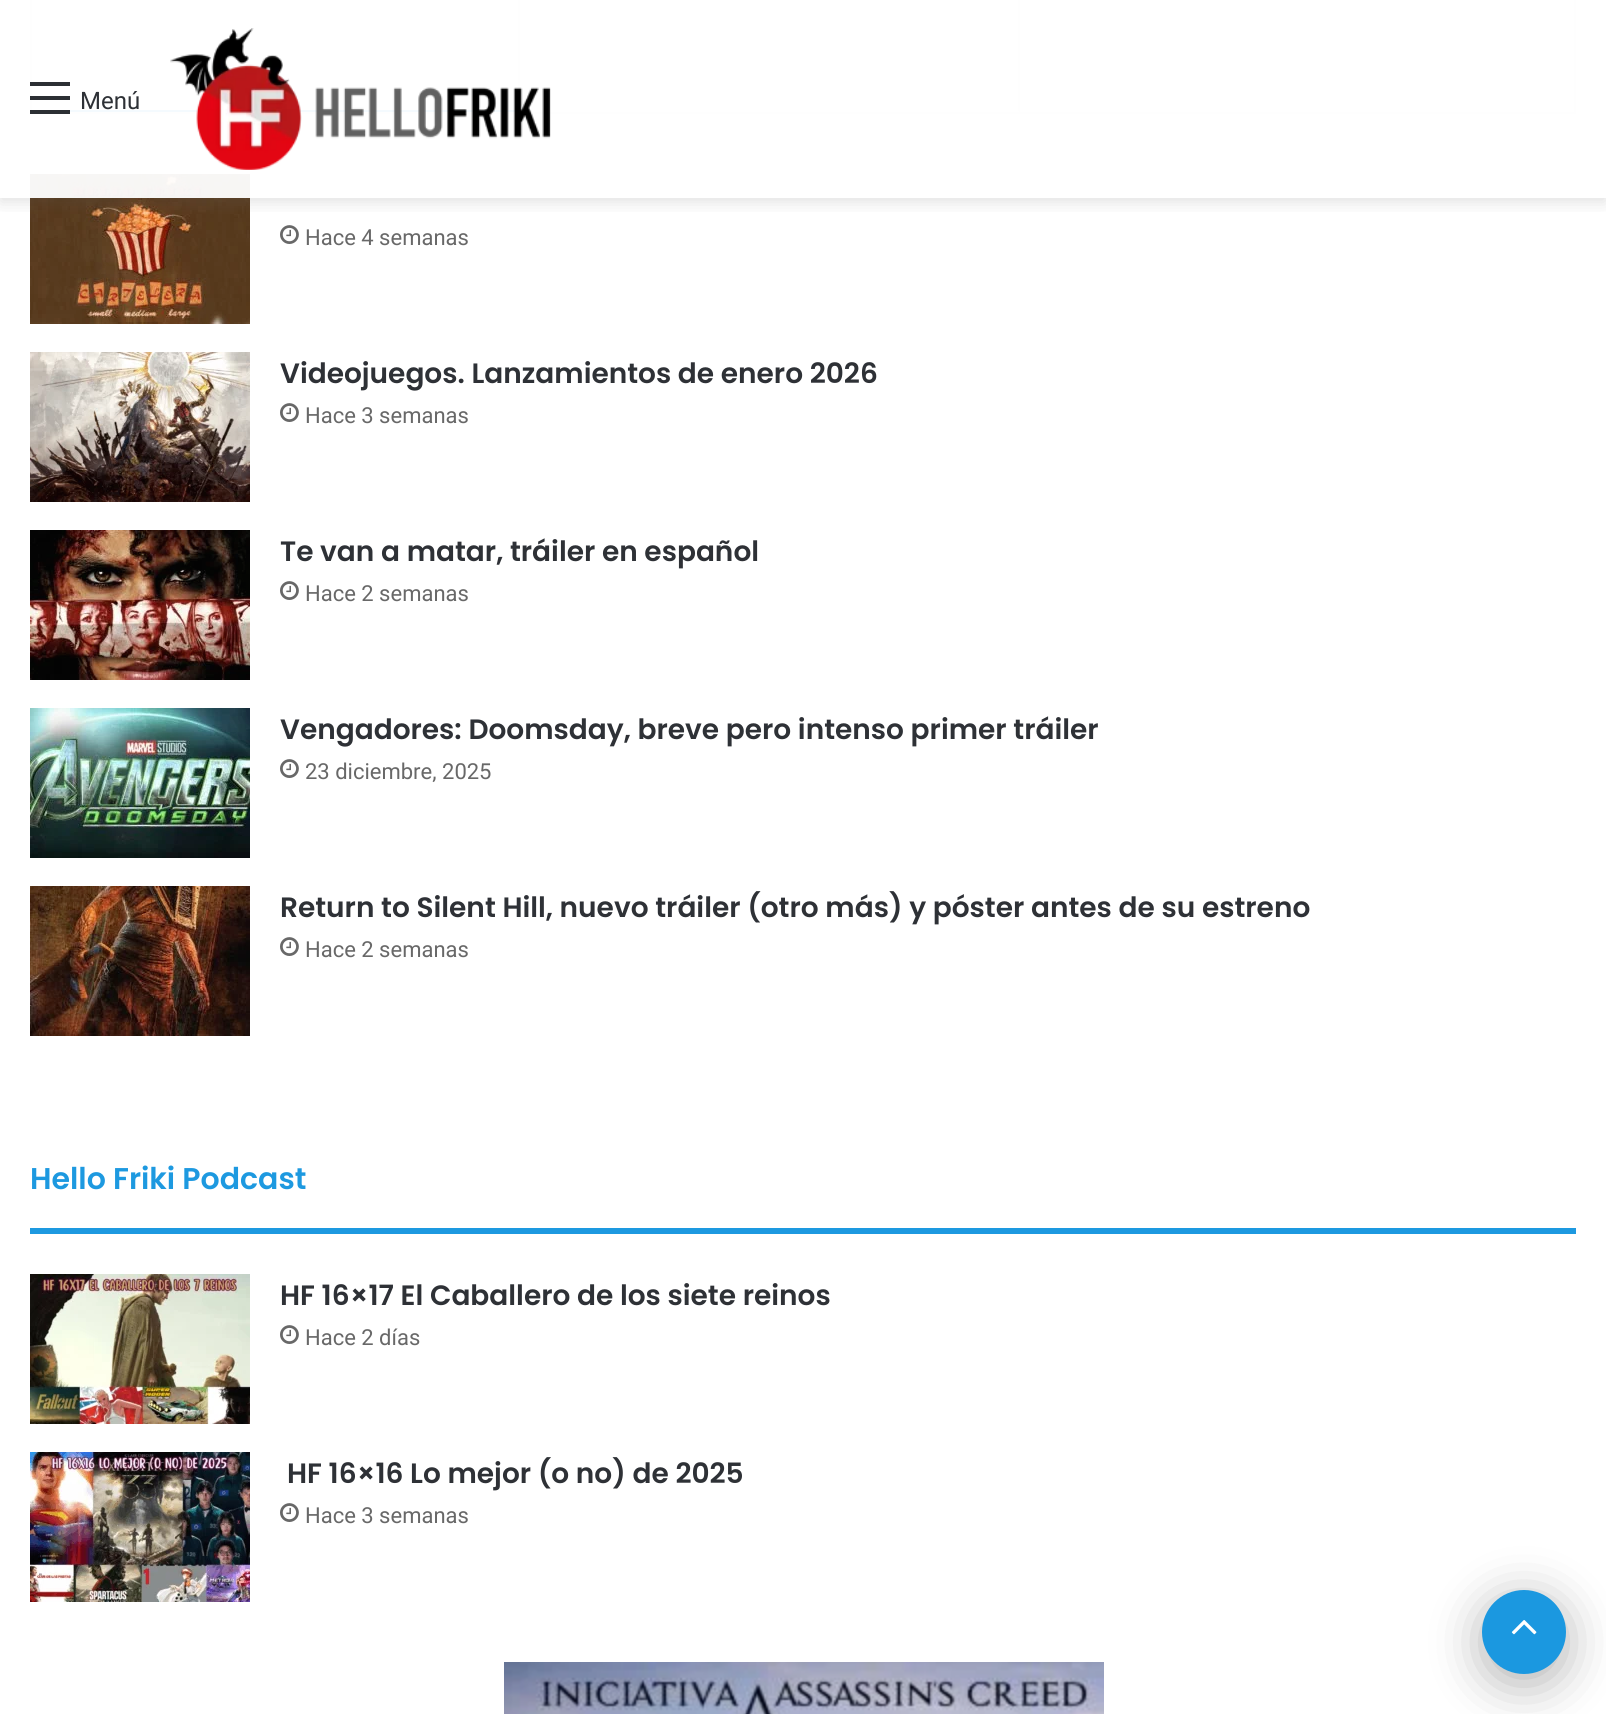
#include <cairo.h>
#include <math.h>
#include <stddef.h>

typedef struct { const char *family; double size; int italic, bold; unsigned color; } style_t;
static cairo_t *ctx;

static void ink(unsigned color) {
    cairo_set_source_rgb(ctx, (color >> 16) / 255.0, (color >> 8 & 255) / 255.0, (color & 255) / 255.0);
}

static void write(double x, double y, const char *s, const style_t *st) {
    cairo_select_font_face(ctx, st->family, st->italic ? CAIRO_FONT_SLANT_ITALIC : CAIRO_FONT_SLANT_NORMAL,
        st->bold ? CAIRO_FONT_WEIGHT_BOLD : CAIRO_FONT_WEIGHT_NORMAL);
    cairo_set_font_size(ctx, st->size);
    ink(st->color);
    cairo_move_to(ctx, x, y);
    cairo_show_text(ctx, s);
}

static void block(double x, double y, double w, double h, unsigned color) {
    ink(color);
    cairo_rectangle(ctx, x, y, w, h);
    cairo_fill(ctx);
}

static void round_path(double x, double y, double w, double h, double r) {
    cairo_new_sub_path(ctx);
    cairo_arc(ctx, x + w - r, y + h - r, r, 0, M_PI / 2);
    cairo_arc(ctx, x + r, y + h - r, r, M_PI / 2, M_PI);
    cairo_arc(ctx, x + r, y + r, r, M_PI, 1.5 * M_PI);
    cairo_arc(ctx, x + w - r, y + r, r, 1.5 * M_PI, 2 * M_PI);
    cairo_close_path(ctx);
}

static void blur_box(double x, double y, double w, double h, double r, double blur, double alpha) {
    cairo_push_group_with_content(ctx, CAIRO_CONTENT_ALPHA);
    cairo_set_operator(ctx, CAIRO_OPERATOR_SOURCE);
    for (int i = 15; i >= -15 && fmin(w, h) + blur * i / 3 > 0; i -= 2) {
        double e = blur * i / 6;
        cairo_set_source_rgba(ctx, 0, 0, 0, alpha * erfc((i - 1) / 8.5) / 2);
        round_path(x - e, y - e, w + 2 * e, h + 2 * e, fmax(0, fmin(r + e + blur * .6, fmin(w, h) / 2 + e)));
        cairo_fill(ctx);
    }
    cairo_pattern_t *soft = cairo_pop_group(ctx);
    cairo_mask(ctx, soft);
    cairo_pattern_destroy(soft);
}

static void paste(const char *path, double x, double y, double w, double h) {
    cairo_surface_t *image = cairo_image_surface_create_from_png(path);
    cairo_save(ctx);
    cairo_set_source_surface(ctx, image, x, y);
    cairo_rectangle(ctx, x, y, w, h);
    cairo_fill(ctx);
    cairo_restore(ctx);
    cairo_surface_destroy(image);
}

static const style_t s1 = {"Roboto", 24, 0, 0, 0x2e3136};
static const style_t s2 = {"Roboto", 22, 0, 0, 0x686868};
static const style_t s3 = {"Poppins SemiBold", 28, 0, 0, 0x2e3136};
static const style_t s4 = {"Poppins SemiBold", 30, 0, 0, 0x1d99e0};

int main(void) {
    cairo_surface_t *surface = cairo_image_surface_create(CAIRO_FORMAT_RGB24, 1606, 1714);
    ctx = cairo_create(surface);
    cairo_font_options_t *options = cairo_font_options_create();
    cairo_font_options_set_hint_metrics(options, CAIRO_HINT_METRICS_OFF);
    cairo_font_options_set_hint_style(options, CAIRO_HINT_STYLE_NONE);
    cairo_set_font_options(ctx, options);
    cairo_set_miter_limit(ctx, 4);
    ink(0xffffff);
    cairo_paint(ctx);
    cairo_rectangle(ctx, 31, -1, 1544, 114);
    ink(0xe6e6e6);
    cairo_stroke(ctx);
    cairo_new_path(ctx);
    cairo_move_to(ctx, 520, -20);
    cairo_line_to(ctx, 520, 112);
    cairo_line_to(ctx, 518, 110);
    cairo_line_to(ctx, 518, -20);
    cairo_close_path(ctx);
    cairo_fill(ctx);
    ink(0x1d99e0);
    cairo_new_path(ctx);
    cairo_move_to(ctx, 520, 112);
    cairo_line_to(ctx, 32, 112);
    cairo_line_to(ctx, 32, 110);
    cairo_line_to(ctx, 518, 110);
    cairo_close_path(ctx);
    cairo_fill(ctx);
    block(520, 0, 1054, 112, 0xfafafa);
    ink(0xe1e1e1);
    cairo_new_path(ctx);
    cairo_move_to(ctx, 1020, -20);
    cairo_line_to(ctx, 1020, 112);
    cairo_line_to(ctx, 1018, 110);
    cairo_line_to(ctx, 1018, -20);
    cairo_close_path(ctx);
    cairo_fill(ctx);
    paste("pic2.png", 30, 174, 220, 150);
    paste("pic3.png", 280, 225, 19, 19);
    cairo_save(ctx);
    cairo_rectangle(ctx, 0, 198, 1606, 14);
    cairo_clip(ctx);
    ink(0x636363);
    blur_box(0, 4, 1606, 198, 0, 8, 0.2);
    cairo_restore(ctx);
    cairo_set_source_rgba(ctx, 1, 1, 1, 0.95);
    cairo_rectangle(ctx, 30, 0, 1546, 198);
    cairo_fill(ctx);
    block(30, 96, 40, 4, 0x2c2f34);
    block(30, 82, 40, 4, 0x2c2f34);
    block(30, 110, 40, 4, 0x2c2f34);
    write(80, 109, "Menú", &s1);
    paste("pic1.png", 170, 28, 381, 142);
    write(305, 245, "Hace 4 semanas", &s2);
    paste("pic4.png", 30, 352, 220, 150);
    write(280, 383, "Videojuegos. Lanzamientos de enero 2026", &s3);
    paste("pic3.png", 280, 403, 19, 19);
    write(305, 423, "Hace 3 semanas", &s2);
    paste("pic5.png", 30, 530, 220, 150);
    write(280, 561, "Te van a matar, tráiler en español", &s3);
    paste("pic3.png", 280, 581, 19, 19);
    write(305, 601, "Hace 2 semanas", &s2);
    paste("pic6.png", 30, 708, 220, 150);
    write(280, 739, "Vengadores: Doomsday, breve pero intenso primer tráiler", &s3);
    paste("pic3.png", 280, 759, 19, 19);
    write(305, 779, "23 diciembre, 2025", &s2);
    paste("pic7.png", 30, 886, 220, 150);
    write(280, 917, "Return to Silent Hill, nuevo tráiler (otro más) y póster antes de su estreno", &s3);
    paste("pic3.png", 280, 937, 19, 19);
    write(305, 957, "Hace 2 semanas", &s2);
    block(30, 1228, 1546, 6, 0x1d99e0);
    write(30, 1189, "Hello Friki Podcast", &s4);
    paste("pic8.png", 30, 1274, 220, 150);
    write(280, 1305, "HF 16×17 El Caballero de los siete reinos", &s3);
    paste("pic3.png", 280, 1325, 19, 19);
    write(305, 1345, "Hace 2 días", &s2);
    paste("pic9.png", 30, 1452, 220, 150);
    write(287, 1483, "HF 16×16 Lo mejor (o no) de 2025", &s3);
    paste("pic3.png", 280, 1503, 19, 19);
    write(305, 1523, "Hace 3 semanas", &s2);
    paste("pic10.png", 504, 1662, 600, 52);
    ink(0x000000);
    blur_box(1482, 1600, 84, 84, 42, 25, 0.3);
    ink(0x1b98e0);
    cairo_arc(ctx, 1524, 1632, 42, 0, 2 * M_PI);
    cairo_fill(ctx);
    paste("pic11.png", 1511, 1620, 26, 15);
    cairo_surface_write_to_png(surface, "screenshot.png");
    cairo_font_options_destroy(options);
    cairo_destroy(ctx);
    cairo_surface_destroy(surface);
    return 0;
}
